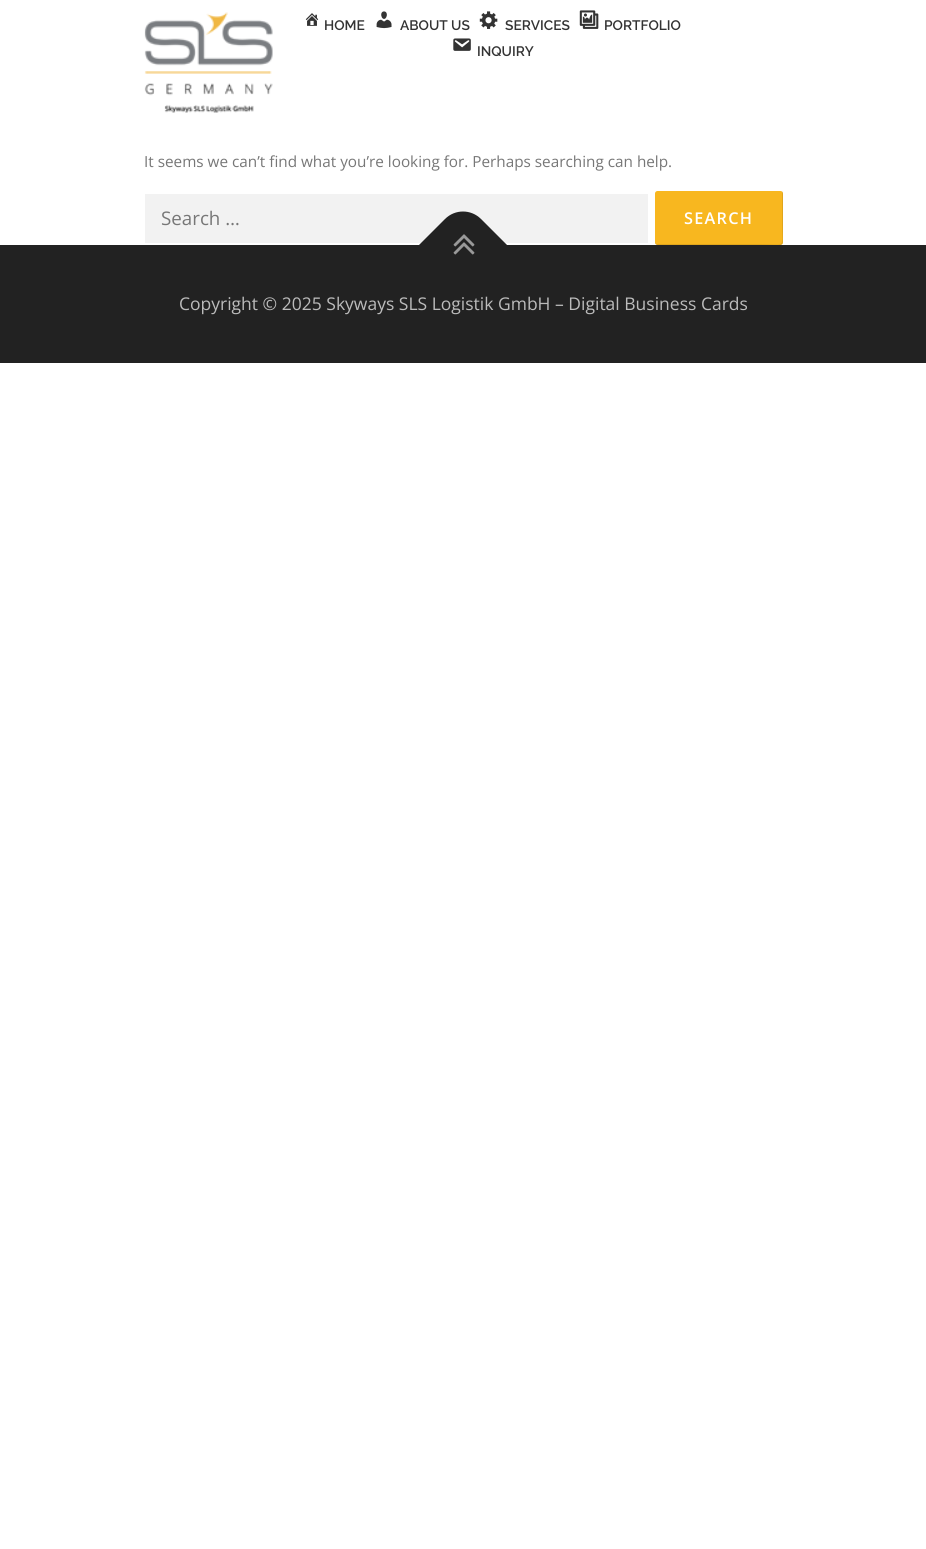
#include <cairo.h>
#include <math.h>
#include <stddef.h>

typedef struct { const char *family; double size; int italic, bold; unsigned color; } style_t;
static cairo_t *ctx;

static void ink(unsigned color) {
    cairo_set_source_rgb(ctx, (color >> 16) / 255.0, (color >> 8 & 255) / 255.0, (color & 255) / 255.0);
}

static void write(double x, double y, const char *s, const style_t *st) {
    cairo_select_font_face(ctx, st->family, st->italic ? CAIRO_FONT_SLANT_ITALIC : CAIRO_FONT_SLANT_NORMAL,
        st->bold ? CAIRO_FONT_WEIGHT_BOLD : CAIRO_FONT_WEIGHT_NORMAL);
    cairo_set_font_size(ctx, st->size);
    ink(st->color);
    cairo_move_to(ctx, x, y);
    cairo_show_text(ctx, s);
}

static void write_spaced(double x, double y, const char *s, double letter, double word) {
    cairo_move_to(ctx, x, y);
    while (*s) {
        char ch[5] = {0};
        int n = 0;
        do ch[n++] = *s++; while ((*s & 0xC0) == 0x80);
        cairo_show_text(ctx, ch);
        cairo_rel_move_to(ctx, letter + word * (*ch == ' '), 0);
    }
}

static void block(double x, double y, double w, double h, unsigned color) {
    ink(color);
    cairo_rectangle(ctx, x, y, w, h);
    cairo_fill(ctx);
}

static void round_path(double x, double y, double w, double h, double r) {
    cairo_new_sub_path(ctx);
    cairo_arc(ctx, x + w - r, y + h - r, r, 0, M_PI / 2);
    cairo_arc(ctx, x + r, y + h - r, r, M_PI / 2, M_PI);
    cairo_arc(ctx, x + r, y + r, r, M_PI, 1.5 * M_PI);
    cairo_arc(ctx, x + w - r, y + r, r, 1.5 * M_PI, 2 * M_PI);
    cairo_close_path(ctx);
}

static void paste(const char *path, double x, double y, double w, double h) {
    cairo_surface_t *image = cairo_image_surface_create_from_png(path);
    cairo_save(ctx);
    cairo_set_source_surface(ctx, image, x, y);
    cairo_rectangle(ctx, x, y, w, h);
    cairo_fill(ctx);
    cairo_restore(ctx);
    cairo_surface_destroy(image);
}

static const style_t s1 = {"Raleway SemiBold", 13.75, 0, 0, 0x333333};
static const style_t s2 = {"Open Sans", 15.3, 0, 0, 0x777777};
static const style_t s3 = {"Open Sans", 18.75, 0, 0, 0x777777};
static const style_t s4 = {"Open Sans", 17.5, 0, 0, 0xbbbbbb};

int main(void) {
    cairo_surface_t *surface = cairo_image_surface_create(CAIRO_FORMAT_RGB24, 926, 1549);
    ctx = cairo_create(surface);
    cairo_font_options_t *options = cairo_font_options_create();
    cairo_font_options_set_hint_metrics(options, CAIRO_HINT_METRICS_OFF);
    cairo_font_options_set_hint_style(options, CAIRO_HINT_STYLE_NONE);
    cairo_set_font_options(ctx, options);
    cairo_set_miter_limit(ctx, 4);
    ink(0xffffff);
    cairo_paint(ctx);
    paste("pic1.png", 144, 12, 129, 101);
    paste("pic2.png", 305, 13, 14, 13);
    write(324, 30, "HOME", &s1);
    paste("pic3.png", 376, 11, 16, 18);
    write(400, 30, "ABOUT US", &s1);
    paste("pic4.png", 479, 11, 19, 18);
    write(505, 30, "SERVICES", &s1);
    paste("pic5.png", 579, 10, 20, 19);
    write(604, 30, "PORTFOLIO", &s1);
    paste("pic6.png", 453, 38, 18, 13);
    write(477, 56, "INQUIRY", &s1);
    write(144, 167, "It seems we can’t find what you’re looking for. Perhaps searching can help.", &s2);
    block(145, 194, 503, 49, 0xf2f2f2);
    write(161, 225, "Search …", &s3);
    ink(0xf8b71f);
    round_path(655, 191, 128, 54, 2.5);
    cairo_fill(ctx);
    cairo_set_source_rgba(ctx, 0, 0, 0, 0.1);
    cairo_new_path(ctx);
    cairo_move_to(ctx, 655, 241);
    cairo_line_to(ctx, 655, 242);
    cairo_curve_to(ctx, 655, 244, 656, 245, 658, 245);
    cairo_line_to(ctx, 780, 245);
    cairo_curve_to(ctx, 782, 245, 783, 244, 783, 242);
    cairo_line_to(ctx, 783, 194);
    cairo_curve_to(ctx, 783, 193, 783, 192, 782, 191);
    cairo_line_to(ctx, 782, 225);
    cairo_curve_to(ctx, 782, 249, 787, 244, 760, 244);
    cairo_line_to(ctx, 657, 244);
    cairo_curve_to(ctx, 656, 244, 655, 243, 655, 241);
    cairo_close_path(ctx);
    cairo_fill(ctx);
    cairo_select_font_face(ctx, "Open Sans SemiBold", CAIRO_FONT_SLANT_NORMAL, CAIRO_FONT_WEIGHT_NORMAL);
    cairo_set_font_size(ctx, 16.25);
    ink(0xffffff);
    write_spaced(684, 224, "SEARCH", 1.25, 0);
    block(0, 245, 926, 118, 0x222222);
    cairo_new_path(ctx);
    cairo_move_to(ctx, 419, 245);
    cairo_line_to(ctx, 445, 219);
    cairo_curve_to(ctx, 455, 209, 471, 209, 481, 219);
    cairo_line_to(ctx, 507, 245);
    cairo_line_to(ctx, 463, 290);
    cairo_close_path(ctx);
    cairo_fill(ctx);
    paste("pic7.png", 453, 234, 22, 21);
    write(179, 310, "Copyright © 2025 Skyways SLS Logistik GmbH – Digital Business Cards", &s4);
    cairo_surface_write_to_png(surface, "screenshot.png");
    cairo_font_options_destroy(options);
    cairo_destroy(ctx);
    cairo_surface_destroy(surface);
    return 0;
}
